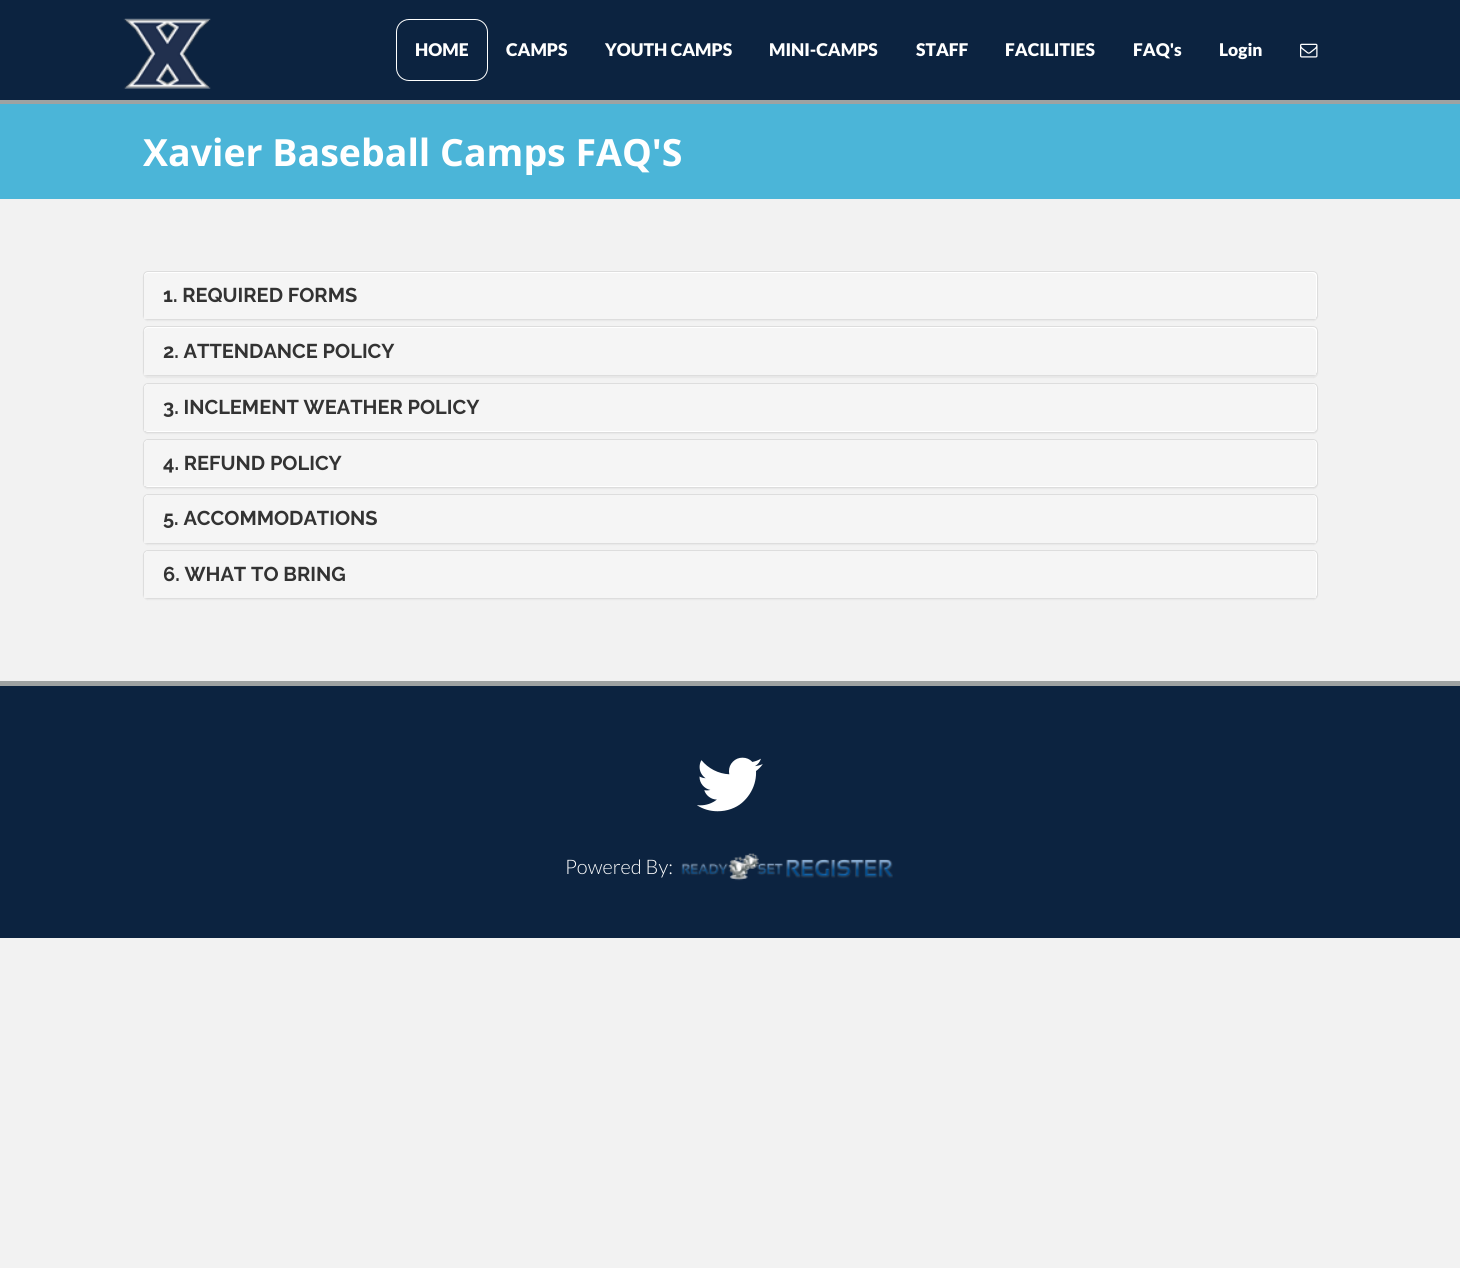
#include <cairo.h>
#include <math.h>
#include <stddef.h>

typedef struct { const char *family; double size; int italic, bold; unsigned color; } style_t;
static cairo_t *ctx;

static void ink(unsigned color) {
    cairo_set_source_rgb(ctx, (color >> 16) / 255.0, (color >> 8 & 255) / 255.0, (color & 255) / 255.0);
}

static void write(double x, double y, const char *s, const style_t *st) {
    cairo_select_font_face(ctx, st->family, st->italic ? CAIRO_FONT_SLANT_ITALIC : CAIRO_FONT_SLANT_NORMAL,
        st->bold ? CAIRO_FONT_WEIGHT_BOLD : CAIRO_FONT_WEIGHT_NORMAL);
    cairo_set_font_size(ctx, st->size);
    ink(st->color);
    cairo_move_to(ctx, x, y);
    cairo_show_text(ctx, s);
}

static void block(double x, double y, double w, double h, unsigned color) {
    ink(color);
    cairo_rectangle(ctx, x, y, w, h);
    cairo_fill(ctx);
}

static void round_path(double x, double y, double w, double h, double r) {
    cairo_new_sub_path(ctx);
    cairo_arc(ctx, x + w - r, y + h - r, r, 0, M_PI / 2);
    cairo_arc(ctx, x + r, y + h - r, r, M_PI / 2, M_PI);
    cairo_arc(ctx, x + r, y + r, r, M_PI, 1.5 * M_PI);
    cairo_arc(ctx, x + w - r, y + r, r, 1.5 * M_PI, 2 * M_PI);
    cairo_close_path(ctx);
}

static void blur_box(double x, double y, double w, double h, double r, double blur, double alpha) {
    cairo_push_group_with_content(ctx, CAIRO_CONTENT_ALPHA);
    cairo_set_operator(ctx, CAIRO_OPERATOR_SOURCE);
    for (int i = 15; i >= -15 && fmin(w, h) + blur * i / 3 > 0; i -= 2) {
        double e = blur * i / 6;
        cairo_set_source_rgba(ctx, 0, 0, 0, alpha * erfc((i - 1) / 8.5) / 2);
        round_path(x - e, y - e, w + 2 * e, h + 2 * e, fmax(0, fmin(r + e + blur * .6, fmin(w, h) / 2 + e)));
        cairo_fill(ctx);
    }
    cairo_pattern_t *soft = cairo_pop_group(ctx);
    cairo_mask(ctx, soft);
    cairo_pattern_destroy(soft);
}

static void paste(const char *path, double x, double y, double w, double h) {
    cairo_surface_t *image = cairo_image_surface_create_from_png(path);
    cairo_save(ctx);
    cairo_set_source_surface(ctx, image, x, y);
    cairo_rectangle(ctx, x, y, w, h);
    cairo_fill(ctx);
    cairo_restore(ctx);
    cairo_surface_destroy(image);
}

static const style_t s1 = {"Lato Black", 17.5, 0, 0, 0xffffff};
static const style_t s2 = {"Open Sans", 37.5, 0, 1, 0xffffff};
static const style_t s3 = {"Raleway", 20, 0, 1, 0x333333};
static const style_t s4 = {"Lato Light", 20, 0, 0, 0xffffff};

int main(void) {
    cairo_surface_t *surface = cairo_image_surface_create(CAIRO_FORMAT_RGB24, 1460, 1268);
    ctx = cairo_create(surface);
    cairo_font_options_t *options = cairo_font_options_create();
    cairo_font_options_set_hint_metrics(options, CAIRO_HINT_METRICS_OFF);
    cairo_font_options_set_hint_style(options, CAIRO_HINT_STYLE_NONE);
    cairo_set_font_options(ctx, options);
    cairo_set_miter_limit(ctx, 4);
    ink(0xf2f2f2);
    cairo_paint(ctx);
    block(0, 0, 1460, 100, 0x0c2340);
    block(0, 100, 1460, 4, 0x9ea2a2);
    paste("pic1.png", 123, 18, 88, 71);
    round_path(396.5, 19.5, 91, 61, 12.5);
    ink(0xffffff);
    cairo_set_line_width(ctx, 1);
    cairo_stroke(ctx);
    write(415, 56, "HOME", &s1);
    write(506, 56, "CAMPS", &s1);
    write(605, 56, "YOUTH CAMPS", &s1);
    write(769, 56, "MINI-CAMPS", &s1);
    write(916, 56, "STAFF", &s1);
    write(1005, 56, "FACILITIES", &s1);
    write(1133, 56, "FAQ's", &s1);
    write(1219, 56, "Login", &s1);
    paste("pic2.png", 1300, 43, 18, 15);
    block(0, 104, 1460, 95, 0x4bb5d8);
    write(143, 166, "Xavier Baseball Camps FAQ'S", &s2);
    ink(0x000000);
    blur_box(143, 273, 1175, 48, 5, 0.5, 0.05);
    ink(0xffffff);
    round_path(143.5, 271.5, 1174, 48, 4.5);
    cairo_fill_preserve(ctx);
    ink(0xdddddd);
    cairo_stroke(ctx);
    ink(0xf5f5f5);
    cairo_new_path(ctx);
    cairo_move_to(ctx, 148, 273);
    cairo_line_to(ctx, 1312, 273);
    cairo_curve_to(ctx, 1314, 273, 1316, 275, 1316, 277);
    cairo_line_to(ctx, 1316, 319);
    cairo_line_to(ctx, 144, 319);
    cairo_line_to(ctx, 144, 277);
    cairo_curve_to(ctx, 144, 275, 146, 273, 148, 273);
    cairo_close_path(ctx);
    cairo_fill(ctx);
    write(163, 302, "1. REQUIRED FORMS", &s3);
    ink(0x000000);
    blur_box(143, 328, 1175, 50, 5, 0.5, 0.05);
    ink(0xffffff);
    round_path(143.5, 326.5, 1174, 49, 4.5);
    cairo_fill_preserve(ctx);
    ink(0xdddddd);
    cairo_stroke(ctx);
    ink(0xf5f5f5);
    cairo_new_path(ctx);
    cairo_move_to(ctx, 148, 328);
    cairo_line_to(ctx, 1312, 328);
    cairo_curve_to(ctx, 1314, 328, 1316, 330, 1316, 332);
    cairo_line_to(ctx, 1316, 375);
    cairo_line_to(ctx, 144, 375);
    cairo_line_to(ctx, 144, 332);
    cairo_curve_to(ctx, 144, 330, 146, 328, 148, 328);
    cairo_close_path(ctx);
    cairo_fill(ctx);
    write(163, 358, "2. ATTENDANCE POLICY", &s3);
    ink(0x000000);
    blur_box(143, 384, 1175, 50, 5, 0.5, 0.05);
    ink(0xffffff);
    round_path(143.5, 383.5, 1174, 49, 4.5);
    cairo_fill_preserve(ctx);
    ink(0xdddddd);
    cairo_stroke(ctx);
    ink(0xf5f5f5);
    cairo_new_path(ctx);
    cairo_move_to(ctx, 148, 384);
    cairo_line_to(ctx, 1312, 384);
    cairo_curve_to(ctx, 1314, 384, 1316, 386, 1316, 388);
    cairo_line_to(ctx, 1316, 431);
    cairo_line_to(ctx, 144, 431);
    cairo_line_to(ctx, 144, 388);
    cairo_curve_to(ctx, 144, 386, 146, 384, 148, 384);
    cairo_close_path(ctx);
    cairo_fill(ctx);
    write(163, 414, "3. INCLEMENT WEATHER POLICY", &s3);
    ink(0x000000);
    blur_box(143, 440, 1175, 49, 5, 0.5, 0.05);
    ink(0xffffff);
    round_path(143.5, 439.5, 1174, 48, 4.5);
    cairo_fill_preserve(ctx);
    ink(0xdddddd);
    cairo_stroke(ctx);
    ink(0xf5f5f5);
    cairo_new_path(ctx);
    cairo_move_to(ctx, 148, 440);
    cairo_line_to(ctx, 1312, 440);
    cairo_curve_to(ctx, 1314, 440, 1316, 442, 1316, 444);
    cairo_line_to(ctx, 1316, 486);
    cairo_line_to(ctx, 144, 486);
    cairo_line_to(ctx, 144, 444);
    cairo_curve_to(ctx, 144, 442, 146, 440, 148, 440);
    cairo_close_path(ctx);
    cairo_fill(ctx);
    write(163, 470, "4. REFUND POLICY", &s3);
    ink(0x000000);
    blur_box(143, 495, 1175, 50, 5, 0.5, 0.05);
    ink(0xffffff);
    round_path(143.5, 494.5, 1174, 49, 4.5);
    cairo_fill_preserve(ctx);
    ink(0xdddddd);
    cairo_stroke(ctx);
    ink(0xf5f5f5);
    cairo_new_path(ctx);
    cairo_move_to(ctx, 148, 495);
    cairo_line_to(ctx, 1312, 495);
    cairo_curve_to(ctx, 1314, 495, 1316, 497, 1316, 499);
    cairo_line_to(ctx, 1316, 543);
    cairo_line_to(ctx, 144, 543);
    cairo_line_to(ctx, 144, 499);
    cairo_curve_to(ctx, 144, 497, 146, 495, 148, 495);
    cairo_close_path(ctx);
    cairo_fill(ctx);
    write(163, 525, "5. ACCOMMODATIONS", &s3);
    ink(0x000000);
    blur_box(143, 551, 1175, 49, 5, 0.5, 0.05);
    ink(0xffffff);
    round_path(143.5, 550.5, 1174, 48, 4.5);
    cairo_fill_preserve(ctx);
    ink(0xdddddd);
    cairo_stroke(ctx);
    ink(0xf5f5f5);
    cairo_new_path(ctx);
    cairo_move_to(ctx, 148, 551);
    cairo_line_to(ctx, 1312, 551);
    cairo_curve_to(ctx, 1314, 551, 1316, 553, 1316, 555);
    cairo_line_to(ctx, 1316, 598);
    cairo_line_to(ctx, 144, 598);
    cairo_line_to(ctx, 144, 555);
    cairo_curve_to(ctx, 144, 553, 146, 551, 148, 551);
    cairo_close_path(ctx);
    cairo_fill(ctx);
    write(163, 581, "6. WHAT TO BRING", &s3);
    block(0, 686, 1460, 252, 0x0c2340);
    block(0, 681, 1460, 5, 0x9ea2a2);
    paste("pic3.png", 697, 757, 66, 55);
    write(565, 874, "Powered By:", &s4);
    paste("pic4.png", 681, 853, 212, 28);
    cairo_surface_write_to_png(surface, "screenshot.png");
    cairo_font_options_destroy(options);
    cairo_destroy(ctx);
    cairo_surface_destroy(surface);
    return 0;
}
